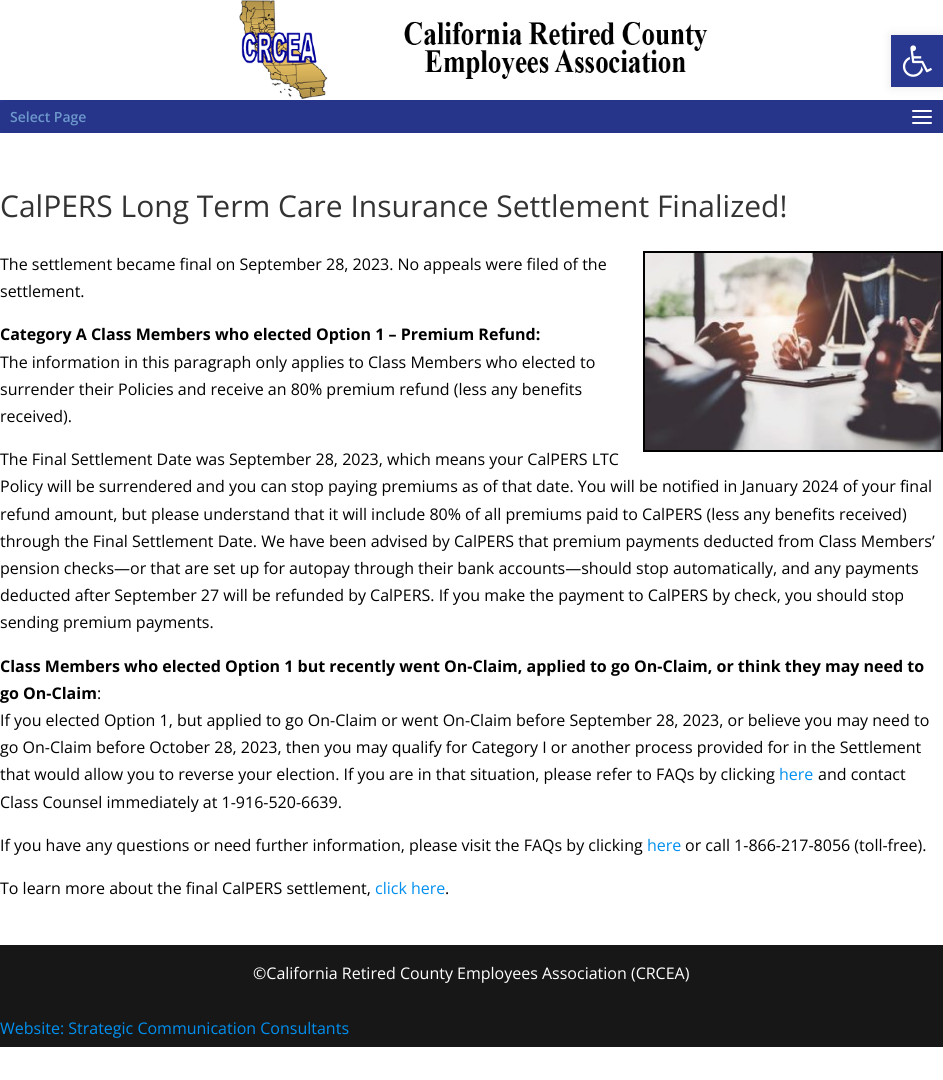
#include <cairo.h>
#include <math.h>
#include <stddef.h>

typedef struct { const char *family; double size; int italic, bold; unsigned color; } style_t;
static cairo_t *ctx;

static void ink(unsigned color) {
    cairo_set_source_rgb(ctx, (color >> 16) / 255.0, (color >> 8 & 255) / 255.0, (color & 255) / 255.0);
}

static void write(double x, double y, const char *s, const style_t *st) {
    cairo_select_font_face(ctx, st->family, st->italic ? CAIRO_FONT_SLANT_ITALIC : CAIRO_FONT_SLANT_NORMAL,
        st->bold ? CAIRO_FONT_WEIGHT_BOLD : CAIRO_FONT_WEIGHT_NORMAL);
    cairo_set_font_size(ctx, st->size);
    ink(st->color);
    cairo_move_to(ctx, x, y);
    cairo_show_text(ctx, s);
}

static void block(double x, double y, double w, double h, unsigned color) {
    ink(color);
    cairo_rectangle(ctx, x, y, w, h);
    cairo_fill(ctx);
}

static void round_path(double x, double y, double w, double h, double r) {
    cairo_new_sub_path(ctx);
    cairo_arc(ctx, x + w - r, y + h - r, r, 0, M_PI / 2);
    cairo_arc(ctx, x + r, y + h - r, r, M_PI / 2, M_PI);
    cairo_arc(ctx, x + r, y + r, r, M_PI, 1.5 * M_PI);
    cairo_arc(ctx, x + w - r, y + r, r, 1.5 * M_PI, 2 * M_PI);
    cairo_close_path(ctx);
}

static void blur_box(double x, double y, double w, double h, double r, double blur, double alpha) {
    cairo_push_group_with_content(ctx, CAIRO_CONTENT_ALPHA);
    cairo_set_operator(ctx, CAIRO_OPERATOR_SOURCE);
    for (int i = 15; i >= -15 && fmin(w, h) + blur * i / 3 > 0; i -= 2) {
        double e = blur * i / 6;
        cairo_set_source_rgba(ctx, 0, 0, 0, alpha * erfc((i - 1) / 8.5) / 2);
        round_path(x - e, y - e, w + 2 * e, h + 2 * e, fmax(0, fmin(r + e + blur * .6, fmin(w, h) / 2 + e)));
        cairo_fill(ctx);
    }
    cairo_pattern_t *soft = cairo_pop_group(ctx);
    cairo_mask(ctx, soft);
    cairo_pattern_destroy(soft);
}

static void paste(const char *path, double x, double y, double w, double h) {
    cairo_surface_t *image = cairo_image_surface_create_from_png(path);
    cairo_save(ctx);
    cairo_set_source_surface(ctx, image, x, y);
    cairo_rectangle(ctx, x, y, w, h);
    cairo_fill(ctx);
    cairo_restore(ctx);
    cairo_surface_destroy(image);
}

static const style_t s1 = {"Open Sans SemiBold", 14, 0, 0, 0x6d98cc};
static const style_t s2 = {"Open Sans", 30, 0, 0, 0x333333};
static const style_t s3 = {"Open Sans", 16, 0, 0, 0x000000};
static const style_t s4 = {"Open Sans", 16, 0, 1, 0x000000};
static const style_t s5 = {"Open Sans", 16, 0, 0, 0x008fef};
static const style_t s6 = {"Open Sans", 16, 0, 0, 0xffffff};

int main(void) {
    cairo_surface_t *surface = cairo_image_surface_create(CAIRO_FORMAT_RGB24, 943, 1080);
    ctx = cairo_create(surface);
    cairo_font_options_t *options = cairo_font_options_create();
    cairo_font_options_set_hint_metrics(options, CAIRO_HINT_METRICS_OFF);
    cairo_font_options_set_hint_style(options, CAIRO_HINT_STYLE_NONE);
    cairo_set_font_options(ctx, options);
    cairo_set_miter_limit(ctx, 4);
    ink(0xffffff);
    cairo_paint(ctx);
    block(0, 100, 943, 33, 0x283891);
    ink(0x26358a);
    round_path(0, 100, 943, 33, 5);
    cairo_fill(ctx);
    ink(0x000000);
    blur_box(891, 35, 52, 52, 0, 5, 0.1);
    block(891, 35, 52, 52, 0x283891);
    paste("pic1.png", 902, 45, 30, 32);
    paste("pic2.png", 239, 0, 469, 100);
    write(10, 122, "Select Page", &s1);
    paste("pic3.png", 912, 110, 20, 14);
    write(0, 217, "CalPERS Long Term Care Insurance Settlement Finalized!", &s2);
    write(0, 270, "The settlement became final on September 28, 2023. No appeals were filed of the", &s3);
    cairo_rectangle(ctx, 644, 252, 298, 199);
    cairo_stroke(ctx);
    paste("pic4.png", 645, 253, 296, 197);
    write(0, 297, "settlement.", &s3);
    write(0, 340, "Category A Class Members who elected Option 1 – Premium Refund:", &s4);
    write(0, 368, "The information in this paragraph only applies to Class Members who elected to", &s3);
    write(0, 395, "surrender their Policies and receive an 80% premium refund (less any benefits", &s3);
    write(0, 422, "received).", &s3);
    write(0, 465, "The Final Settlement Date was September 28, 2023, which means your CalPERS LTC", &s3);
    write(0, 492, "Policy will be surrendered and you can stop paying premiums as of that date. You will be notified in January 2024 of your final", &s3);
    write(0, 520, "refund amount, but please understand that it will include 80% of all premiums paid to CalPERS (less any benefits received)", &s3);
    write(0, 547, "through the Final Settlement Date. We have been advised by CalPERS that premium payments deducted from Class Members’", &s3);
    write(0, 574, "pension checks—or that are set up for autopay through their bank accounts—should stop automatically, and any payments", &s3);
    write(0, 601, "deducted after September 27 will be refunded by CalPERS. If you make the payment to CalPERS by check, you should stop", &s3);
    write(0, 628, "sending premium payments.", &s3);
    write(0, 672, "Class Members who elected Option 1 but recently went On-Claim, applied to go On-Claim, or think they may need to", &s4);
    write(0, 699, "go On-Claim", &s4);
    write(97, 699, ":", &s3);
    write(0, 726, "If you elected Option 1, but applied to go On-Claim or went On-Claim before September 28, 2023, or believe you may need to", &s3);
    write(0, 753, "go On-Claim before October 28, 2023, then you may qualify for Category I or another process provided for in the Settlement", &s3);
    write(0, 780, "that would allow you to reverse your election. If you are in that situation, please refer to FAQs by clicking", &s3);
    write(779, 780, "here", &s5);
    write(818, 780, "and contact", &s3);
    write(0, 808, "Class Counsel immediately at 1-916-520-6639.", &s3);
    write(0, 851, "If you have any questions or need further information, please visit the FAQs by clicking", &s3);
    write(647, 851, "here", &s5);
    write(685, 851, "or call 1-866-217-8056 (toll-free).", &s3);
    write(0, 894, "To learn more about the final CalPERS settlement,", &s3);
    write(375, 894, "click here", &s5);
    write(445, 894, ".", &s3);
    block(0, 945, 943, 102, 0x171717);
    write(253, 979, "©California Retired County Employees Association (CRCEA)", &s6);
    write(0, 1034, "Website: Strategic Communication Consultants", &s5);
    cairo_surface_write_to_png(surface, "screenshot.png");
    cairo_font_options_destroy(options);
    cairo_destroy(ctx);
    cairo_surface_destroy(surface);
    return 0;
}
